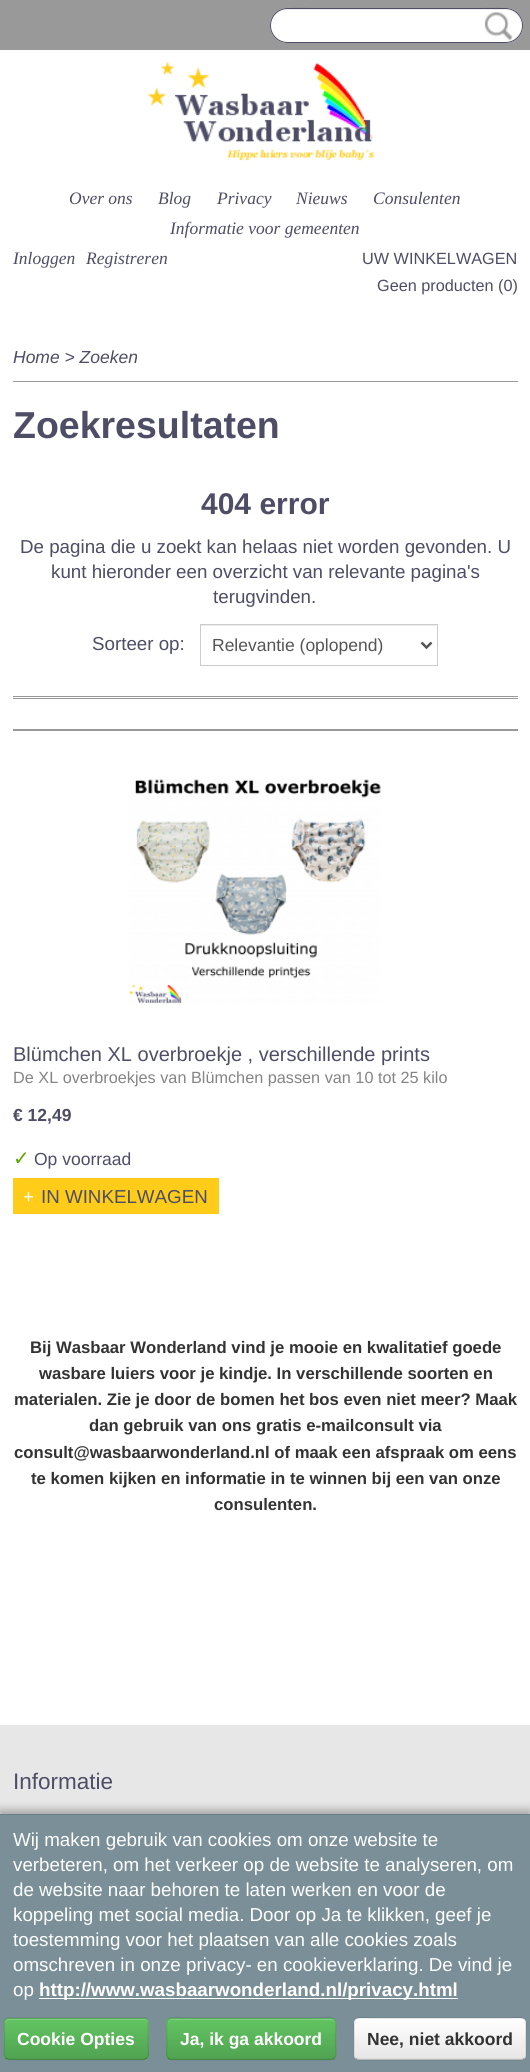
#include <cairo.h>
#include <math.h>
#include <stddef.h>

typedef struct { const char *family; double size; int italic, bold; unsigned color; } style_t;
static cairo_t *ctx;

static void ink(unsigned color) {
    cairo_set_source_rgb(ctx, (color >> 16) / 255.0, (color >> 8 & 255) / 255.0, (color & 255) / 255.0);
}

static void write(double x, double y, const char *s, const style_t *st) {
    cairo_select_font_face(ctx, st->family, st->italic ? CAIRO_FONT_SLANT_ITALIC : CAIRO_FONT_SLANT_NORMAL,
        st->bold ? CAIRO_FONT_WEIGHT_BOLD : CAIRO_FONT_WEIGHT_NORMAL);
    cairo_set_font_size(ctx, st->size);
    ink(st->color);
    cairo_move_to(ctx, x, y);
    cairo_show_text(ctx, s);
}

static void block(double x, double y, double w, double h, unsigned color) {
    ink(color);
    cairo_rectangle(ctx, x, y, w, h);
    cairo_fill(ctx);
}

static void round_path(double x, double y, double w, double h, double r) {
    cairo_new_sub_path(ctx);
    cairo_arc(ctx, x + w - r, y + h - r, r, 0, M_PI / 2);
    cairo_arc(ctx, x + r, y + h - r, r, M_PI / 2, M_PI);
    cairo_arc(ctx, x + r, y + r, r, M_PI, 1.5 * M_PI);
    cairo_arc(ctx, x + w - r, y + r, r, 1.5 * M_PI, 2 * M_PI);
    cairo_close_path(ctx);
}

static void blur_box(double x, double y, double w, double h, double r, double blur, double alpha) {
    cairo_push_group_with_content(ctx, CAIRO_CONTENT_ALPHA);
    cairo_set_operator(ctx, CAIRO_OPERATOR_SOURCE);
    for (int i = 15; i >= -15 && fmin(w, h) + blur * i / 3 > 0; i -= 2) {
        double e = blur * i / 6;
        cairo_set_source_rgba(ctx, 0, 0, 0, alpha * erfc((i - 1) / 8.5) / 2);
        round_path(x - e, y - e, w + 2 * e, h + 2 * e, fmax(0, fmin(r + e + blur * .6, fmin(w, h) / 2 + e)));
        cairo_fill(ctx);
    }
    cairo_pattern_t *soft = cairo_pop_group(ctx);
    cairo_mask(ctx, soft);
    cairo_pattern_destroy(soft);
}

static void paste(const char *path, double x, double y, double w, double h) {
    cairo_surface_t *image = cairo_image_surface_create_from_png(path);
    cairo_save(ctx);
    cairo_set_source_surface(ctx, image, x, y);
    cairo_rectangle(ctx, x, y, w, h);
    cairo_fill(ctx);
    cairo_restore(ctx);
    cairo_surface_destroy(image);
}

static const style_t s1 = {"Liberation Serif", 17.5, 1, 0, 0x4d4d66};
static const style_t s2 = {"Liberation Sans", 16.25, 0, 0, 0x4d4d66};
static const style_t s3 = {"Liberation Sans", 17.5, 1, 0, 0x4d4d66};
static const style_t s4 = {"Liberation Sans", 37.5, 0, 1, 0x4d4d66};
static const style_t s5 = {"Liberation Sans", 30, 0, 1, 0x4d4d66};
static const style_t s6 = {"Liberation Sans", 18.75, 0, 0, 0x4d4d66};
static const style_t s7 = {"Liberation Sans", 17.5, 0, 0, 0x555555};
static const style_t s8 = {"Liberation Sans", 20, 0, 0, 0x4d4d66};
static const style_t s9 = {"Liberation Sans", 16.25, 0, 0, 0x848484};
static const style_t s10 = {"Liberation Sans", 17.5, 0, 1, 0x4d4d66};
static const style_t s11 = {"DejaVu Sans", 20, 0, 0, 0x5ea600};
static const style_t s12 = {"Liberation Sans", 17.5, 0, 0, 0x4d4d66};
static const style_t s13 = {"Liberation Sans", 18.75, 0, 0, 0xffffff};
static const style_t s14 = {"Liberation Sans", 16.7, 0, 1, 0x333333};
static const style_t s15 = {"Liberation Sans", 22.5, 0, 0, 0x4d4d66};
static const style_t s16 = {"Liberation Sans", 18.75, 0, 1, 0xffffff};
static const style_t s17 = {"Liberation Sans", 17.5, 0, 1, 0xffffff};
static const style_t s18 = {"Liberation Sans", 17.5, 0, 1, 0x333333};

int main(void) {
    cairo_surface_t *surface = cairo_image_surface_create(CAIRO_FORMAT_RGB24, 530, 2072);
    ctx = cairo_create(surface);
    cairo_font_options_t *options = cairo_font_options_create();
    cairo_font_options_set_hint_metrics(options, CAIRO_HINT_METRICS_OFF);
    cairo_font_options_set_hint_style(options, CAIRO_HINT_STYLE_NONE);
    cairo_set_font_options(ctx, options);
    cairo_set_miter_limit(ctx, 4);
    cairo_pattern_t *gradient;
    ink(0xffffff);
    cairo_paint(ctx);
    block(0, 0, 530, 50, 0x999999);
    ink(0xffffff);
    round_path(270, 8, 253, 35, 17.5);
    cairo_fill(ctx);
    cairo_set_source_rgba(ctx, 0, 0, 0, 0.07);
    cairo_new_path(ctx);
    cairo_move_to(ctx, 288, 10);
    cairo_line_to(ctx, 505, 10);
    cairo_curve_to(ctx, 514, 10, 521, 17, 521, 25);
    cairo_curve_to(ctx, 522, 0, 479, 9, 469, 9);
    cairo_line_to(ctx, 323, 9);
    cairo_curve_to(ctx, 313, 9, 270, 0, 271, 26);
    cairo_curve_to(ctx, 271, 17, 279, 10, 288, 10);
    cairo_close_path(ctx);
    cairo_fill(ctx);
    round_path(270.5, 8.5, 252, 34, 17);
    ink(0x4d4d66);
    cairo_set_line_width(ctx, 1);
    cairo_stroke(ctx);
    paste("pic1.png", 484, 12, 29, 29);
    paste("pic2.png", 147, 61, 227, 100);
    write(69, 204, "Over ons", &s1);
    write(158, 204, "Blog", &s1);
    write(217, 204, "Privacy", &s1);
    write(296, 204, "Nieuws", &s1);
    write(373, 204, "Consulenten", &s1);
    write(170, 234, "Informatie voor gemeenten", &s1);
    write(13, 264, "Inloggen", &s1);
    write(86, 264, "Registreren", &s1);
    write(362, 264, "UW WINKELWAGEN", &s2);
    write(377, 291, "Geen producten (0)", &s2);
    block(13, 381, 505, 1, 0x999999);
    write(13, 363, "Home > Zoeken", &s3);
    write(13, 438, "Zoekresultaten", &s4);
    write(201, 514, "404 error", &s5);
    write(20, 553, "De pagina die u zoekt kan helaas niet worden gevonden. U", &s6);
    write(51, 578, "kunt hieronder een overzicht van relevante pagina's", &s6);
    write(213, 603, "terugvinden.", &s6);
    write(92, 650, "Sorteer op:", &s6);
    block(201, 625, 235, 1, 0xececec);
    cairo_rectangle(ctx, 200.5, 624.5, 237, 41);
    ink(0xcccccc);
    cairo_stroke(ctx);
    cairo_new_path(ctx);
    cairo_move_to(ctx, 421.5, 642.5);
    cairo_line_to(ctx, 426.5, 647.5);
    cairo_line_to(ctx, 431.5, 642.5);
    ink(0x555555);
    cairo_set_line_width(ctx, 2.5);
    cairo_stroke(ctx);
    write(212, 651, "Relevantie (oplopend)", &s7);
    block(13, 696, 505, 1, 0x999999);
    block(13, 698, 505, 1, 0x999999);
    block(13, 729, 505, 2, 0x999999);
    paste("pic3.png", 129, 779, 252, 225);
    write(13, 1061, "Blümchen XL overbroekje , verschillende prints", &s8);
    write(13, 1083, "De XL overbroekjes van Blümchen passen van 10 tot 25 kilo", &s9);
    write(13, 1121, "€ 12,49", &s10);
    write(13, 1165, "✓", &s11);
    write(34, 1165, "Op voorraad", &s12);
    block(13, 1178, 206, 36, 0xffcc1a);
    write(23, 1203, "+", &s13);
    write(41, 1203, "IN WINKELWAGEN", &s6);
    write(30, 1353, "Bij Wasbaar Wonderland vind je mooie en kwalitatief goede", &s14);
    write(39, 1379, "wasbare luiers voor je kindje. In verschillende soorten en", &s14);
    write(14, 1405, "materialen. Zie je door de bomen het bos even niet meer? Maak", &s14);
    write(89, 1431, "dan gebruik van ons gratis e-mailconsult via", &s14);
    write(14, 1458, "consult@wasbaarwonderland.nl of maak een afspraak om eens", &s14);
    write(31, 1484, "te komen kijken en informatie in te winnen bij een van onze", &s14);
    write(214, 1510, "consulenten.", &s14);
    block(0, 1725, 530, 89, 0xe8e7e7);
    write(13, 1789, "Informatie", &s15);
    ink(0x000000);
    blur_box(0, 1810, 530, 259, 0, 4.5, 0.3);
    block(0, 1815, 530, 257, 0x7a8f98);
    block(0, 1814, 530, 1, 0x697e87);
    write(13, 1846, "Wij maken gebruik van cookies om onze website te", &s13);
    write(13, 1871, "verbeteren, om het verkeer op de website te analyseren, om", &s13);
    write(13, 1896, "de website naar behoren te laten werken en voor de", &s13);
    write(13, 1921, "koppeling met social media. Door op Ja te klikken, geef je", &s13);
    write(13, 1946, "toestemming voor het plaatsen van alle cookies zoals", &s13);
    write(13, 1971, "omschreven in onze privacy- en cookieverklaring. De vind je", &s13);
    write(13, 1996, "op", &s13);
    block(39, 1998, 419, 1, 0xffffff);
    write(39, 1996, "http://www.wasbaarwonderland.nl/privacy.html", &s16);
    ink(0x5bb75b);
    round_path(4, 2018, 145, 42, 5);
    cairo_fill(ctx);
    cairo_save(ctx);
    round_path(4, 2018, 145, 42, 5);
    cairo_clip(ctx);
    gradient = cairo_pattern_create_linear(76, 2019, 76, 2059);
    cairo_pattern_add_color_stop_rgba(gradient, 0, 0.384, 0.769, 0.384, 1);
    cairo_pattern_add_color_stop_rgba(gradient, 1, 0.318, 0.639, 0.318, 1);
    cairo_set_source(ctx, gradient);
    cairo_pattern_destroy(gradient);
    cairo_rectangle(ctx, 4, 2019, 145, 40);
    cairo_fill(ctx);
    cairo_restore(ctx);
    ink(0x81d081);
    cairo_new_path(ctx);
    cairo_move_to(ctx, 9, 2020);
    cairo_line_to(ctx, 144, 2020);
    cairo_curve_to(ctx, 146, 2020, 148, 2022, 148, 2024);
    cairo_line_to(ctx, 148, 2023);
    cairo_curve_to(ctx, 148, 2021, 146, 2019, 144, 2019);
    cairo_line_to(ctx, 9, 2019);
    cairo_curve_to(ctx, 7, 2019, 5, 2021, 5, 2023);
    cairo_line_to(ctx, 5, 2024);
    cairo_curve_to(ctx, 5, 2022, 7, 2020, 9, 2020);
    cairo_close_path(ctx);
    cairo_fill(ctx);
    cairo_new_path(ctx);
    cairo_move_to(ctx, 147, 2058);
    cairo_line_to(ctx, 144, 2059.5);
    cairo_line_to(ctx, 31, 2059.5);
    cairo_line_to(ctx, 9, 2059.5);
    cairo_line_to(ctx, 5.5, 2058);
    cairo_set_source_rgba(ctx, 0, 0, 0, 0.25);
    cairo_set_line_width(ctx, 1.2);
    cairo_stroke(ctx);
    cairo_new_path(ctx);
    cairo_move_to(ctx, 5.5, 2058);
    cairo_curve_to(ctx, 3, 2055.5, 4.5, 2047, 4.5, 2044);
    cairo_line_to(ctx, 4.5, 2028);
    cairo_curve_to(ctx, 4.5, 2024.5, 3.5, 2018, 8.5, 2018);
    cairo_line_to(ctx, 144, 2018);
    cairo_curve_to(ctx, 149, 2018, 148, 2024.5, 148, 2028);
    cairo_line_to(ctx, 148, 2044);
    cairo_curve_to(ctx, 148, 2047, 149.5, 2055.5, 147, 2058);
    cairo_set_source_rgba(ctx, 0, 0, 0, 0.1);
    cairo_stroke(ctx);
    write(17, 2045, "Cookie Opties", &s17);
    ink(0x5bb75b);
    round_path(166, 2018, 170, 42, 5);
    cairo_fill(ctx);
    cairo_save(ctx);
    round_path(166, 2018, 170, 42, 5);
    cairo_clip(ctx);
    gradient = cairo_pattern_create_linear(251, 2019, 251, 2059);
    cairo_pattern_add_color_stop_rgba(gradient, 0, 0.384, 0.769, 0.384, 1);
    cairo_pattern_add_color_stop_rgba(gradient, 1, 0.318, 0.639, 0.318, 1);
    cairo_set_source(ctx, gradient);
    cairo_pattern_destroy(gradient);
    cairo_rectangle(ctx, 166, 2019, 170, 40);
    cairo_fill(ctx);
    cairo_restore(ctx);
    ink(0x81d081);
    cairo_new_path(ctx);
    cairo_move_to(ctx, 171, 2020);
    cairo_line_to(ctx, 331, 2020);
    cairo_curve_to(ctx, 333, 2020, 335, 2022, 335, 2024);
    cairo_line_to(ctx, 335, 2023);
    cairo_curve_to(ctx, 335, 2021, 333, 2019, 331, 2019);
    cairo_line_to(ctx, 172, 2019);
    cairo_curve_to(ctx, 170, 2019, 168, 2021, 168, 2023);
    cairo_line_to(ctx, 168, 2024);
    cairo_curve_to(ctx, 168, 2022, 169, 2020, 171, 2020);
    cairo_close_path(ctx);
    cairo_fill(ctx);
    cairo_new_path(ctx);
    cairo_move_to(ctx, 334.5, 2058);
    cairo_curve_to(ctx, 333.5, 2059, 332.5, 2059.5, 331, 2059.5);
    cairo_line_to(ctx, 171, 2059.5);
    cairo_curve_to(ctx, 170, 2059.5, 169, 2059, 168, 2058);
    cairo_set_source_rgba(ctx, 0, 0, 0, 0.25);
    cairo_stroke(ctx);
    cairo_new_path(ctx);
    cairo_move_to(ctx, 168, 2058);
    cairo_curve_to(ctx, 165.5, 2055.5, 167, 2047, 167, 2044);
    cairo_curve_to(ctx, 167, 2011.5, 161.5, 2018, 198, 2018);
    cairo_line_to(ctx, 304.5, 2018);
    cairo_curve_to(ctx, 341, 2018, 335.5, 2011.5, 335.5, 2044);
    cairo_curve_to(ctx, 335.5, 2047, 337, 2055.5, 334.5, 2058);
    cairo_set_source_rgba(ctx, 0, 0, 0, 0.1);
    cairo_stroke(ctx);
    write(180, 2045, "Ja, ik ga akkoord", &s17);
    ink(0xf5f5f5);
    round_path(354, 2018, 172, 42, 5);
    cairo_fill(ctx);
    cairo_save(ctx);
    round_path(354, 2018, 172, 42, 5);
    cairo_clip(ctx);
    gradient = cairo_pattern_create_linear(440, 2019, 440, 2059);
    cairo_pattern_add_color_stop_rgba(gradient, 0, 1, 1, 1, 1);
    cairo_pattern_add_color_stop_rgba(gradient, 1, 0.902, 0.902, 0.902, 1);
    cairo_set_source(ctx, gradient);
    cairo_pattern_destroy(gradient);
    cairo_rectangle(ctx, 354, 2019, 172, 40);
    cairo_fill(ctx);
    cairo_restore(ctx);
    cairo_new_path(ctx);
    cairo_move_to(ctx, 524.5, 2058);
    cairo_curve_to(ctx, 523.5, 2059, 522.5, 2059.5, 521, 2059.5);
    cairo_line_to(ctx, 359, 2059.5);
    cairo_curve_to(ctx, 357.5, 2059.5, 356.5, 2059, 355.5, 2058);
    cairo_set_source_rgba(ctx, 0, 0, 0, 0.25);
    cairo_stroke(ctx);
    cairo_new_path(ctx);
    cairo_move_to(ctx, 355.5, 2058);
    cairo_curve_to(ctx, 353, 2055.5, 354.5, 2047, 354.5, 2044);
    cairo_curve_to(ctx, 354.5, 2011.5, 349, 2018, 386, 2018);
    cairo_line_to(ctx, 494, 2018);
    cairo_curve_to(ctx, 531, 2018, 525.5, 2011.5, 525.5, 2044);
    cairo_curve_to(ctx, 525.5, 2047, 527, 2055.5, 524.5, 2058);
    cairo_set_source_rgba(ctx, 0, 0, 0, 0.1);
    cairo_stroke(ctx);
    write(367, 2045, "Nee, niet akkoord", &s18);
    cairo_surface_write_to_png(surface, "screenshot.png");
    cairo_font_options_destroy(options);
    cairo_destroy(ctx);
    cairo_surface_destroy(surface);
    return 0;
}
